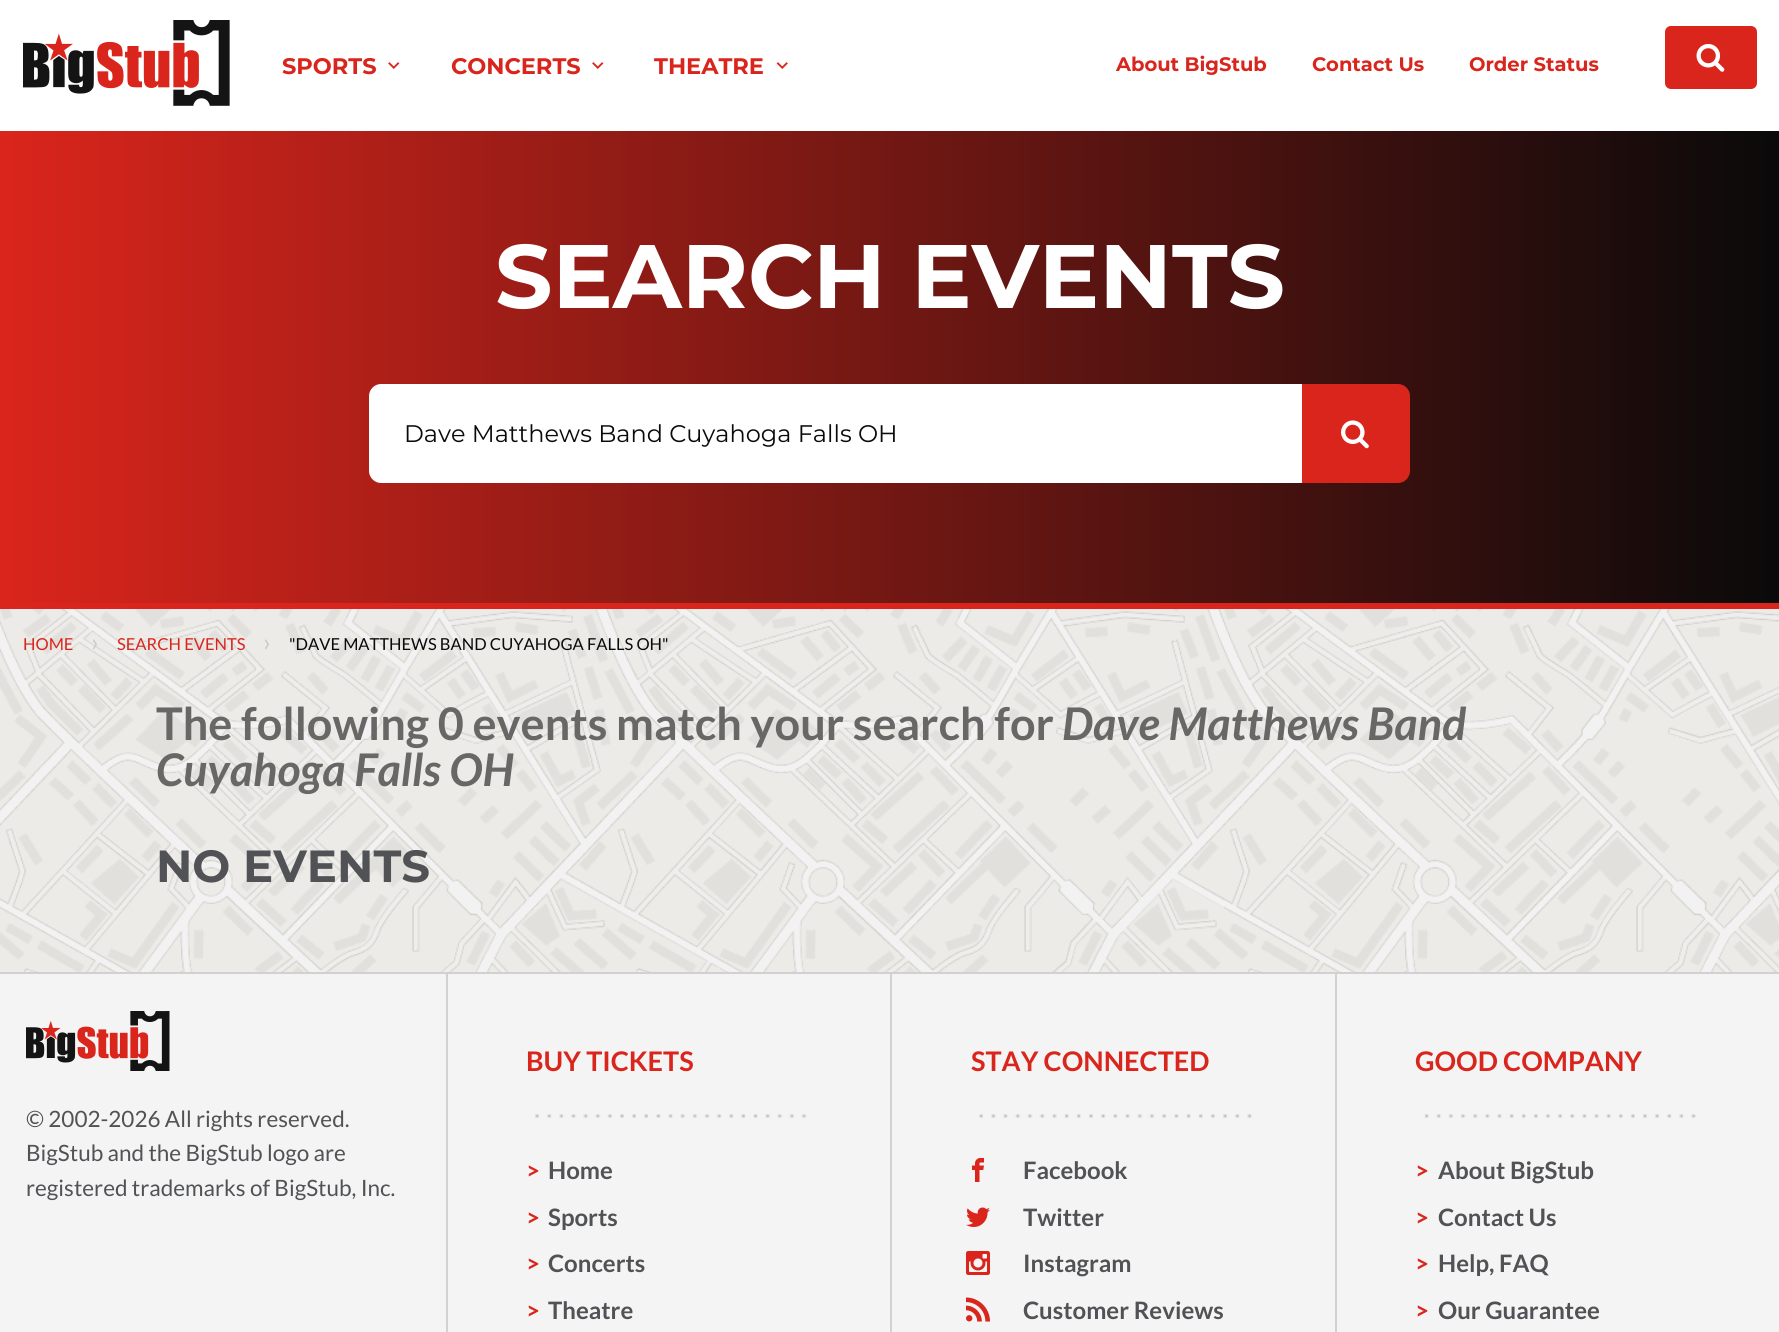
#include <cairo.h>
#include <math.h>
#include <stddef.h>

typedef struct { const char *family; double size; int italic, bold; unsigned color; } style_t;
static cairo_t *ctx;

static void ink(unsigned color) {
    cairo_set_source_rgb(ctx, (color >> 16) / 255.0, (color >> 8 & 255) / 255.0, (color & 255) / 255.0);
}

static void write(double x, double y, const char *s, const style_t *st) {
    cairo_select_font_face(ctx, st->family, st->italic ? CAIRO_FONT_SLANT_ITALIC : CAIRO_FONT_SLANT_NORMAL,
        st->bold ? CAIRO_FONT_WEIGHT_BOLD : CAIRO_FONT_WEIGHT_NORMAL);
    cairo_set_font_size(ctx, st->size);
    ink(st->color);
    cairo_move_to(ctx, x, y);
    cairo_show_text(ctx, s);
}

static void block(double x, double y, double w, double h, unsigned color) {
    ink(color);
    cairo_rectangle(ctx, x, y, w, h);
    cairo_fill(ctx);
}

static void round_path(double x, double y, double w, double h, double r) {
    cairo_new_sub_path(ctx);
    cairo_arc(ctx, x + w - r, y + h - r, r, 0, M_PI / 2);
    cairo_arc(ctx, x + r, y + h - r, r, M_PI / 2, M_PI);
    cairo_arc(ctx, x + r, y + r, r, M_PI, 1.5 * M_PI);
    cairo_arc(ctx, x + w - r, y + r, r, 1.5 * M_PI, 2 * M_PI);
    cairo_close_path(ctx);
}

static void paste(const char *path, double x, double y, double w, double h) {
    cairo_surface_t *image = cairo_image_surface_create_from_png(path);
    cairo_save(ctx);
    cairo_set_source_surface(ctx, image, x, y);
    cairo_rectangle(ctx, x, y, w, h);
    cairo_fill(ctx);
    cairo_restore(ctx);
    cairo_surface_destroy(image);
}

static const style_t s1 = {"Montserrat", 22.5, 0, 1, 0xda251c};
static const style_t s2 = {"Montserrat", 19.5, 0, 1, 0xda251c};
static const style_t s3 = {"Montserrat", 90, 0, 1, 0xffffff};
static const style_t s4 = {"Montserrat", 24, 0, 0, 0x0a0a0a};
static const style_t s5 = {"Lato", 16.5, 0, 0, 0xda251c};
static const style_t s6 = {"Lato", 25, 0, 0, 0xcacaca};
static const style_t s7 = {"Lato", 16.5, 0, 0, 0x0a0a0a};
static const style_t s8 = {"Lato", 45, 0, 1, 0x686766};
static const style_t s9 = {"Lato", 45, 1, 1, 0x686766};
static const style_t s10 = {"Montserrat", 45, 0, 1, 0x515255};
static const style_t s11 = {"Lato", 22.5, 0, 0, 0x515255};
static const style_t s12 = {"Lato", 27, 0, 1, 0xda251c};
static const style_t s13 = {"Lato", 24, 0, 1, 0xda251c};
static const style_t s14 = {"Lato", 24, 0, 1, 0x515255};

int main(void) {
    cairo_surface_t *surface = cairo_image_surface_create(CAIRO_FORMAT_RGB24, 1779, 1332);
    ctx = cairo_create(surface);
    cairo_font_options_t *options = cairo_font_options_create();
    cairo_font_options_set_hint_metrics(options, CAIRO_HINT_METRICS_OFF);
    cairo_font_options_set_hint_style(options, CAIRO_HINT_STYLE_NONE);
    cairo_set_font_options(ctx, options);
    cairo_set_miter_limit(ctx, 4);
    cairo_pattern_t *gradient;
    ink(0xf4f4f4);
    cairo_paint(ctx);
    block(0, 0, 1779, 131, 0xffffff);
    paste("pic1.png", 23, 20, 207, 86);
    write(282, 74, "SPORTS", &s1);
    paste("pic2.png", 388, 62, 12, 7);
    write(451, 74, "CONCERTS", &s1);
    paste("pic2.png", 592, 62, 12, 7);
    write(654, 74, "THEATRE", &s1);
    paste("pic3.png", 776, 62, 12, 7);
    write(1116, 71, "About BigStub", &s2);
    write(1312, 71, "Contact Us", &s2);
    write(1469, 71, "Order Status", &s2);
    round_path(1665, 26, 92, 63, 6);
    cairo_fill(ctx);
    paste("pic4.png", 1696, 43, 29, 29);
    block(0, 603, 1779, 6, 0xda251c);
    gradient = cairo_pattern_create_linear(1779, 367, 0, 367);
    cairo_pattern_add_color_stop_rgba(gradient, 0, 0.039, 0.039, 0.039, 1);
    cairo_pattern_add_color_stop_rgba(gradient, 1, 0.855, 0.145, 0.11, 1);
    cairo_set_source(ctx, gradient);
    cairo_pattern_destroy(gradient);
    cairo_rectangle(ctx, 0, 131, 1779, 472);
    cairo_fill(ctx);
    write(495, 308, "SEARCH EVENTS", &s3);
    cairo_new_path(ctx);
    cairo_move_to(ctx, 381, 384);
    cairo_line_to(ctx, 1302, 384);
    cairo_line_to(ctx, 1302, 483);
    cairo_line_to(ctx, 381, 483);
    cairo_curve_to(ctx, 374.5, 483, 369, 477.5, 369, 471);
    cairo_line_to(ctx, 369, 396);
    cairo_curve_to(ctx, 369, 389.5, 374.5, 384, 381, 384);
    cairo_close_path(ctx);
    cairo_fill(ctx);
    write(404, 442, "Dave Matthews Band Cuyahoga Falls OH", &s4);
    ink(0xda251c);
    cairo_new_path(ctx);
    cairo_move_to(ctx, 1302, 384);
    cairo_line_to(ctx, 1398, 384);
    cairo_curve_to(ctx, 1404.5, 384, 1410, 389.5, 1410, 396);
    cairo_line_to(ctx, 1410, 471);
    cairo_curve_to(ctx, 1410, 477.5, 1404.5, 483, 1398, 483);
    cairo_line_to(ctx, 1302, 483);
    cairo_close_path(ctx);
    cairo_fill(ctx);
    paste("pic5.png", 1341, 420, 28, 29);
    block(0, 609, 1779, 363, 0xeaeaea);
    paste("pic6.png", 0, 609, 1779, 363);
    write(23, 650, "HOME", &s5);
    write(91, 651, "›", &s6);
    write(117, 650, "SEARCH EVENTS", &s5);
    write(263, 651, "›", &s6);
    write(289, 650, "\"DAVE MATTHEWS BAND CUYAHOGA FALLS OH\"", &s7);
    write(156, 740, "The following 0 events match your search for", &s8);
    write(1062, 740, "Dave Matthews Band", &s9);
    write(156, 786, "Cuyahoga Falls OH", &s9);
    write(156, 882, "NO EVENTS", &s10);
    block(0, 972, 1779, 2, 0xd1d1d1);
    paste("pic7.png", 26, 1011, 144, 60);
    write(26, 1127, "© 2002-2026 All rights reserved.", &s11);
    write(26, 1161, "BigStub and the BigStub logo are", &s11);
    write(26, 1196, "registered trademarks of BigStub, Inc.", &s11);
    block(446, 974, 2, 358, 0xd1d1d1);
    write(526, 1071, "BUY TICKETS", &s12);
    paste("pic8.png", 535, 1114, 272, 4);
    write(526, 1179, ">", &s13);
    write(548, 1179, "Home", &s14);
    write(526, 1226, ">", &s13);
    write(548, 1226, "Sports", &s14);
    write(526, 1272, ">", &s13);
    write(548, 1272, "Concerts", &s14);
    write(526, 1319, ">", &s13);
    write(548, 1319, "Theatre", &s14);
    block(890, 974, 2, 358, 0xd1d1d1);
    write(971, 1071, "STAY CONNECTED", &s12);
    paste("pic9.png", 979, 1114, 273, 4);
    paste("pic10.png", 972, 1158, 12, 24);
    write(1023, 1179, "Facebook", &s14);
    paste("pic11.png", 966, 1207, 24, 20);
    write(1023, 1226, "Twitter", &s14);
    paste("pic12.png", 966, 1251, 24, 24);
    write(1023, 1272, "Instagram", &s14);
    paste("pic13.png", 966, 1297, 24, 25);
    write(1023, 1319, "Customer Reviews", &s14);
    block(1335, 974, 2, 358, 0xd1d1d1);
    write(1415, 1071, "GOOD COMPANY", &s12);
    paste("pic14.png", 1424, 1114, 272, 4);
    write(1415, 1179, ">", &s13);
    write(1438, 1179, "About BigStub", &s14);
    write(1415, 1226, ">", &s13);
    write(1438, 1226, "Contact Us", &s14);
    write(1415, 1272, ">", &s13);
    write(1438, 1272, "Help, FAQ", &s14);
    write(1415, 1319, ">", &s13);
    write(1438, 1319, "Our Guarantee", &s14);
    cairo_surface_write_to_png(surface, "screenshot.png");
    cairo_font_options_destroy(options);
    cairo_destroy(ctx);
    cairo_surface_destroy(surface);
    return 0;
}
